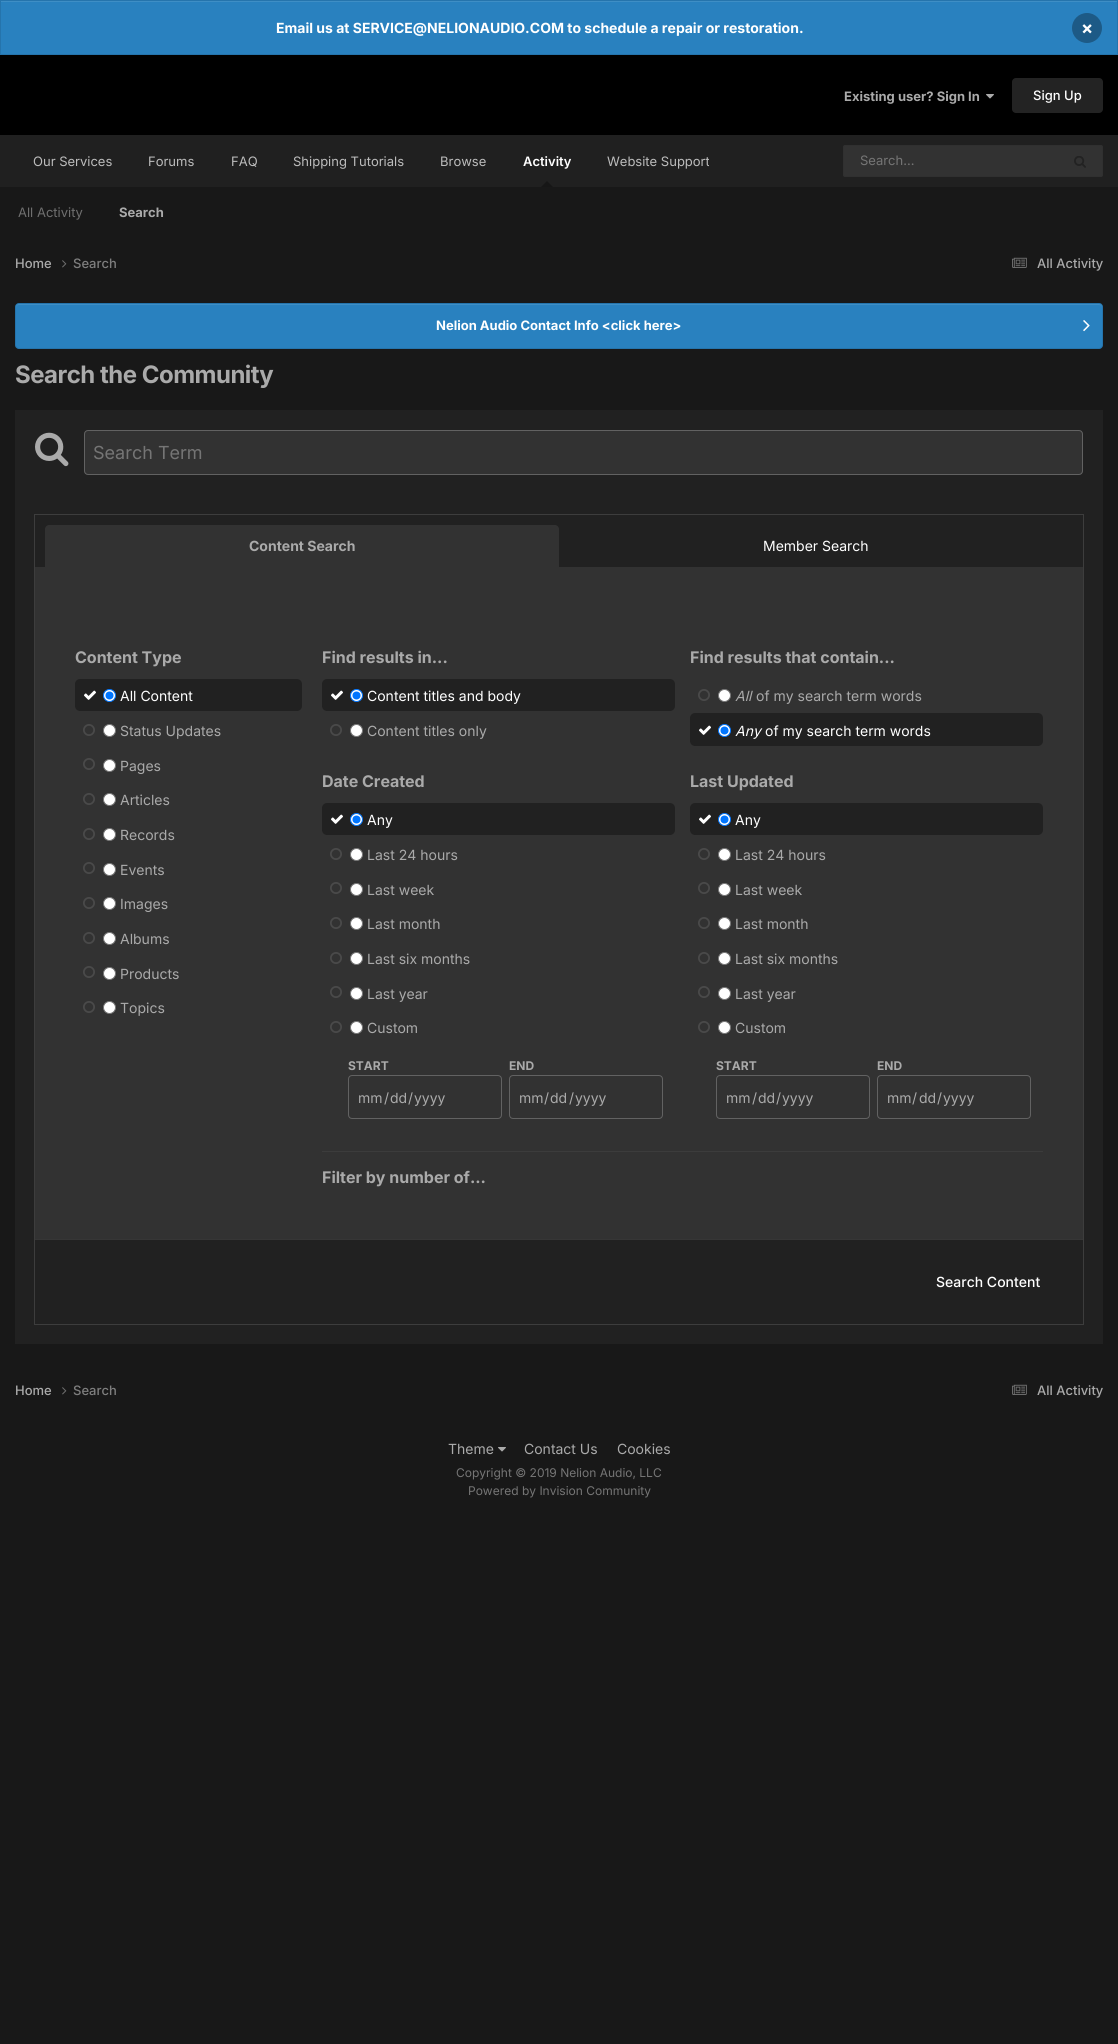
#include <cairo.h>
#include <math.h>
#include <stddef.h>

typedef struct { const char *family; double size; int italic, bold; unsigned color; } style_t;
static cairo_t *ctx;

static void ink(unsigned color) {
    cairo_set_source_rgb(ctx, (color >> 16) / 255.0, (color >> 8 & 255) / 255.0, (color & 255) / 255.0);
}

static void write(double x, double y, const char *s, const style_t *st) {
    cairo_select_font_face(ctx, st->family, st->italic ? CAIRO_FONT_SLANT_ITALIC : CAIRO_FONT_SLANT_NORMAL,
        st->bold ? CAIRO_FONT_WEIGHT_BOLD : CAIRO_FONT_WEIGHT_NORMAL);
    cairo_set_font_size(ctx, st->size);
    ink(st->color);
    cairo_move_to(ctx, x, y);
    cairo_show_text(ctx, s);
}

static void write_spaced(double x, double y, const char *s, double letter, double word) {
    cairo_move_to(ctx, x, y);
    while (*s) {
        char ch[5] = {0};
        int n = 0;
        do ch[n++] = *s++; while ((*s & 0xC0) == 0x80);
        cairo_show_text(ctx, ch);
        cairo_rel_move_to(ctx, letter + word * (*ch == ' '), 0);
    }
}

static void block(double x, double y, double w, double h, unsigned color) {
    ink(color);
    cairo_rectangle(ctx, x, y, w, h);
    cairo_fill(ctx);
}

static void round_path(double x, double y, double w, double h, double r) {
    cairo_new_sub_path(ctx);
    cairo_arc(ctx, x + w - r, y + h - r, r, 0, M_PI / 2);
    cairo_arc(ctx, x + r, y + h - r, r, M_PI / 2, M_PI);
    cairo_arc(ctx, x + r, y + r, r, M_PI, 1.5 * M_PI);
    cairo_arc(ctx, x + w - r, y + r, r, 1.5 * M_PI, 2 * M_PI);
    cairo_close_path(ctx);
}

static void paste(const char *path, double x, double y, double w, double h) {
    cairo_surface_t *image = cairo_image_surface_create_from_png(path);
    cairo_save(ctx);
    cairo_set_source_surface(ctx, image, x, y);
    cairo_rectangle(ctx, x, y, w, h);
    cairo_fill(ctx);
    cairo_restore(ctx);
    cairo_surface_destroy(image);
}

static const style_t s1 = {"Inter", 14, 0, 1, 0xffffff};
static const style_t s2 = {"Inter", 18, 0, 1, 0xffffff};
static const style_t s3 = {"Inter", 13, 0, 1, 0xaaaaaa};
static const style_t s4 = {"Inter Medium", 13, 0, 0, 0xffffff};
static const style_t s5 = {"Inter SemiBold", 13, 0, 0, 0xffffff};
static const style_t s6 = {"Inter", 13, 0, 0, 0x6f6f6f};
static const style_t s7 = {"Inter", 13, 0, 0, 0xbcbcbc};
static const style_t s8 = {"Inter", 13, 0, 0, 0x757575};
static const style_t s9 = {"Inter Medium", 13, 0, 0, 0xaaaaaa};
static const style_t s10 = {"Inter Medium", 13, 0, 0, 0x7e7e7e};
static const style_t s11 = {"Inter", 13, 0, 1, 0xffffff};
static const style_t s12 = {"Inter", 18, 0, 0, 0x757575};
static const style_t s13 = {"Inter", 14, 0, 1, 0xaaaaaa};
static const style_t s14 = {"Inter", 14, 0, 0, 0xffffff};
static const style_t s15 = {"Inter", 16, 0, 1, 0xaaaaaa};
static const style_t s16 = {"Inter", 14, 0, 0, 0xaaaaaa};
static const style_t s17 = {"Inter", 14, 1, 0, 0xaaaaaa};
static const style_t s18 = {"Inter", 14, 1, 0, 0xffffff};
static const style_t s19 = {"Inter", 12, 0, 1, 0xaaaaaa};
static const style_t s20 = {"Inter Medium", 14, 0, 0, 0xffffff};
static const style_t s21 = {"Inter", 12, 0, 0, 0x757575};

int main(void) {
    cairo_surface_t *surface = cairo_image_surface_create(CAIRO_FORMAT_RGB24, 1118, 2044);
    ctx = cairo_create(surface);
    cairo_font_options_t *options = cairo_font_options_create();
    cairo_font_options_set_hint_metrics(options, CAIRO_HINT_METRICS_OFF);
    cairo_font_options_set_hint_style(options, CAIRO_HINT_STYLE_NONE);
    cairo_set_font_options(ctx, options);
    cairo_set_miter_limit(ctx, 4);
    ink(0x181818);
    cairo_paint(ctx);
    block(1, 2, 1116, 52, 0x2981bf);
    block(1, 1, 1116, 1, 0x3e8ec5);
    cairo_rectangle(ctx, 0.5, 0.5, 1117, 54);
    ink(0x2574ac);
    cairo_set_line_width(ctx, 1);
    cairo_stroke(ctx);
    write(276, 33, "Email us at SERVICE@NELIONAUDIO.COM to schedule a repair or restoration.", &s1);
    ink(0x1d5a86);
    cairo_new_path(ctx);
    cairo_arc(ctx, 1087, 28, 15, 0, 2 * M_PI);
    cairo_fill(ctx);
    write(1081, 34, "×", &s2);
    block(0, 55, 1118, 80, 0x000000);
    write(844, 101, "Existing user? Sign In", &s3);
    paste("pic1.png", 986, 94, 8, 5);
    ink(0x232323);
    round_path(1012, 78, 91, 35, 4);
    cairo_fill(ctx);
    write(1033, 100, "Sign Up", &s4);
    block(0, 135, 1118, 52, 0x202020);
    write(523, 166, "Activity", &s5);
    ink(0x161616);
    cairo_new_path(ctx);
    cairo_move_to(ctx, 553, 187);
    cairo_line_to(ctx, 541, 187);
    cairo_line_to(ctx, 547, 181);
    cairo_close_path(ctx);
    cairo_fill(ctx);
    write(18, 217, "All Activity", &s6);
    write(119, 217, "Search", &s3);
    write(33, 166, "Our Services", &s7);
    write(148, 166, "Forums", &s7);
    write(231, 166, "FAQ", &s7);
    write(293, 166, "Shipping Tutorials", &s7);
    write(440, 166, "Browse", &s7);
    write(607, 166, "Website Support", &s7);
    ink(0x323232);
    round_path(843.5, 145.5, 259, 31, 1.5);
    cairo_fill_preserve(ctx);
    ink(0x303030);
    cairo_stroke(ctx);
    write(860, 165, "Search...", &s8);
    paste("pic2.png", 1074, 156, 12, 12);
    write(15, 268, "Home", &s9);
    paste("pic3.png", 62, 260, 5, 8);
    write(73, 268, "Search", &s10);
    paste("pic4.png", 1012, 257, 15, 11);
    write(1037, 268, "All Activity", &s9);
    ink(0x2981bf);
    round_path(15, 303, 1088, 46, 4);
    cairo_fill(ctx);
    ink(0x3e8ec5);
    cairo_new_path(ctx);
    cairo_move_to(ctx, 19, 305);
    cairo_line_to(ctx, 1099, 305);
    cairo_curve_to(ctx, 1101, 305, 1102, 306, 1102, 308);
    cairo_line_to(ctx, 1102, 307);
    cairo_curve_to(ctx, 1102, 305, 1101, 304, 1099, 304);
    cairo_line_to(ctx, 19, 304);
    cairo_curve_to(ctx, 17, 304, 16, 305, 16, 307);
    cairo_line_to(ctx, 16, 308);
    cairo_curve_to(ctx, 16, 306, 17, 305, 19, 305);
    cairo_close_path(ctx);
    cairo_fill(ctx);
    round_path(15.5, 303.5, 1087, 45, 3.5);
    cairo_set_source_rgba(ctx, 0, 0, 0, 0.1);
    cairo_stroke(ctx);
    write(436, 330, "Nelion Audio Contact Info <click here>", &s11);
    paste("pic5.png", 1083, 320, 7, 12);
    cairo_set_font_size(ctx, 24);
    ink(0xaaaaaa);
    write_spaced(15, 383, "Search the Community", -0.5, 0);
    block(15, 410, 1088, 934, 0x212121);
    paste("pic6.png", 35, 432, 34, 35);
    ink(0x323232);
    round_path(84, 430, 999, 45, 4);
    cairo_fill(ctx);
    round_path(84.5, 430.5, 998, 44, 3.5);
    cairo_set_source_rgba(ctx, 0.667, 0.667, 0.667, 0.4);
    cairo_stroke(ctx);
    write(93, 459, "Search Term", &s12);
    cairo_rectangle(ctx, 34.5, 514.5, 1049, 810);
    ink(0x3d3d3d);
    cairo_stroke(ctx);
    ink(0x323232);
    cairo_new_path(ctx);
    cairo_move_to(ctx, 49, 525);
    cairo_line_to(ctx, 555, 525);
    cairo_curve_to(ctx, 557, 525, 559, 527, 559, 529);
    cairo_line_to(ctx, 559, 567);
    cairo_line_to(ctx, 45, 567);
    cairo_line_to(ctx, 45, 529);
    cairo_curve_to(ctx, 45, 527, 47, 525, 49, 525);
    cairo_close_path(ctx);
    cairo_fill(ctx);
    write(249, 551, "Content Search", &s13);
    write(763, 551, "Member Search", &s14);
    block(35, 567, 1048, 672, 0x323232);
    write(75, 663, "Content Type", &s15);
    ink(0x212121);
    round_path(75, 679, 227, 32, 5);
    cairo_fill(ctx);
    paste("pic7.png", 84, 690, 12, 10);
    ink(0xffffff);
    cairo_arc(ctx, 109.5, 695.5, 6, 0, 2 * M_PI);
    cairo_fill_preserve(ctx);
    ink(0x0075ff);
    cairo_stroke(ctx);
    cairo_arc(ctx, 109.5, 695.5, 4, 0, 2 * M_PI);
    cairo_fill(ctx);
    write(120, 701, "All Content", &s14);
    paste("pic8.png", 83, 724, 12, 12);
    cairo_arc(ctx, 109.5, 730.5, 6, 0, 2 * M_PI);
    cairo_fill_preserve(ctx);
    ink(0x767676);
    cairo_stroke(ctx);
    write(120, 736, "Status Updates", &s16);
    paste("pic8.png", 83, 758, 12, 12);
    ink(0xffffff);
    cairo_arc(ctx, 109.5, 765.5, 6, 0, 2 * M_PI);
    cairo_fill_preserve(ctx);
    ink(0x767676);
    cairo_stroke(ctx);
    write(120, 771, "Pages", &s16);
    paste("pic8.png", 83, 793, 12, 12);
    ink(0xffffff);
    cairo_arc(ctx, 109.5, 799.5, 6, 0, 2 * M_PI);
    cairo_fill_preserve(ctx);
    ink(0x767676);
    cairo_stroke(ctx);
    write(120, 805, "Articles", &s16);
    paste("pic8.png", 83, 828, 12, 12);
    ink(0xffffff);
    cairo_arc(ctx, 109.5, 834.5, 6, 0, 2 * M_PI);
    cairo_fill_preserve(ctx);
    ink(0x767676);
    cairo_stroke(ctx);
    write(120, 840, "Records", &s16);
    paste("pic8.png", 83, 862, 12, 12);
    ink(0xffffff);
    cairo_arc(ctx, 109.5, 869.5, 6, 0, 2 * M_PI);
    cairo_fill_preserve(ctx);
    ink(0x767676);
    cairo_stroke(ctx);
    write(120, 875, "Events", &s16);
    paste("pic8.png", 83, 897, 12, 12);
    ink(0xffffff);
    cairo_arc(ctx, 109.5, 903.5, 6, 0, 2 * M_PI);
    cairo_fill_preserve(ctx);
    ink(0x767676);
    cairo_stroke(ctx);
    write(120, 909, "Images", &s16);
    paste("pic8.png", 83, 932, 12, 12);
    ink(0xffffff);
    cairo_arc(ctx, 109.5, 938.5, 6, 0, 2 * M_PI);
    cairo_fill_preserve(ctx);
    ink(0x767676);
    cairo_stroke(ctx);
    write(120, 944, "Albums", &s16);
    paste("pic8.png", 83, 966, 12, 12);
    ink(0xffffff);
    cairo_arc(ctx, 109.5, 973.5, 6, 0, 2 * M_PI);
    cairo_fill_preserve(ctx);
    ink(0x767676);
    cairo_stroke(ctx);
    write(120, 979, "Products", &s16);
    paste("pic8.png", 83, 1001, 12, 12);
    ink(0xffffff);
    cairo_arc(ctx, 109.5, 1007.5, 6, 0, 2 * M_PI);
    cairo_fill_preserve(ctx);
    ink(0x767676);
    cairo_stroke(ctx);
    write(120, 1013, "Topics", &s16);
    write(322, 663, "Find results in...", &s15);
    ink(0x212121);
    round_path(322, 679, 353, 32, 5);
    cairo_fill(ctx);
    paste("pic7.png", 331, 690, 12, 10);
    ink(0xffffff);
    cairo_arc(ctx, 356.5, 695.5, 6, 0, 2 * M_PI);
    cairo_fill_preserve(ctx);
    ink(0x0075ff);
    cairo_stroke(ctx);
    cairo_arc(ctx, 356.5, 695.5, 4, 0, 2 * M_PI);
    cairo_fill(ctx);
    write(367, 701, "Content titles and body", &s14);
    paste("pic8.png", 330, 724, 12, 12);
    cairo_arc(ctx, 356.5, 730.5, 6, 0, 2 * M_PI);
    cairo_fill_preserve(ctx);
    ink(0x767676);
    cairo_stroke(ctx);
    write(367, 736, "Content titles only", &s16);
    write(690, 663, "Find results that contain...", &s15);
    paste("pic8.png", 698, 689, 12, 12);
    ink(0xffffff);
    cairo_arc(ctx, 724.5, 695.5, 6, 0, 2 * M_PI);
    cairo_fill_preserve(ctx);
    ink(0x767676);
    cairo_stroke(ctx);
    write(735, 701, "All", &s17);
    write(756, 701, "of my search term words", &s16);
    ink(0x212121);
    round_path(690, 713, 353, 33, 5);
    cairo_fill(ctx);
    paste("pic7.png", 699, 725, 12, 10);
    ink(0xffffff);
    cairo_arc(ctx, 724.5, 730.5, 6, 0, 2 * M_PI);
    cairo_fill_preserve(ctx);
    ink(0x0075ff);
    cairo_stroke(ctx);
    cairo_arc(ctx, 724.5, 730.5, 4, 0, 2 * M_PI);
    cairo_fill(ctx);
    write(735, 736, "Any", &s18);
    write(765, 736, "of my search term words", &s14);
    write(322, 787, "Date Created", &s15);
    ink(0x212121);
    round_path(322, 803, 353, 32, 5);
    cairo_fill(ctx);
    paste("pic7.png", 331, 814, 12, 10);
    ink(0xffffff);
    cairo_arc(ctx, 356.5, 819.5, 6, 0, 2 * M_PI);
    cairo_fill_preserve(ctx);
    ink(0x0075ff);
    cairo_stroke(ctx);
    cairo_arc(ctx, 356.5, 819.5, 4, 0, 2 * M_PI);
    cairo_fill(ctx);
    write(367, 825, "Any", &s14);
    paste("pic8.png", 330, 848, 12, 12);
    cairo_arc(ctx, 356.5, 854.5, 6, 0, 2 * M_PI);
    cairo_fill_preserve(ctx);
    ink(0x767676);
    cairo_stroke(ctx);
    write(367, 860, "Last 24 hours", &s16);
    paste("pic8.png", 330, 882, 12, 12);
    ink(0xffffff);
    cairo_arc(ctx, 356.5, 889.5, 6, 0, 2 * M_PI);
    cairo_fill_preserve(ctx);
    ink(0x767676);
    cairo_stroke(ctx);
    write(367, 895, "Last week", &s16);
    paste("pic8.png", 330, 917, 12, 12);
    ink(0xffffff);
    cairo_arc(ctx, 356.5, 923.5, 6, 0, 2 * M_PI);
    cairo_fill_preserve(ctx);
    ink(0x767676);
    cairo_stroke(ctx);
    write(367, 929, "Last month", &s16);
    paste("pic8.png", 330, 952, 12, 12);
    ink(0xffffff);
    cairo_arc(ctx, 356.5, 958.5, 6, 0, 2 * M_PI);
    cairo_fill_preserve(ctx);
    ink(0x767676);
    cairo_stroke(ctx);
    write(367, 964, "Last six months", &s16);
    paste("pic8.png", 330, 986, 12, 12);
    ink(0xffffff);
    cairo_arc(ctx, 356.5, 993.5, 6, 0, 2 * M_PI);
    cairo_fill_preserve(ctx);
    ink(0x767676);
    cairo_stroke(ctx);
    write(367, 999, "Last year", &s16);
    paste("pic8.png", 330, 1021, 12, 12);
    ink(0xffffff);
    cairo_arc(ctx, 356.5, 1027.5, 6, 0, 2 * M_PI);
    cairo_fill_preserve(ctx);
    ink(0x767676);
    cairo_stroke(ctx);
    write(367, 1033, "Custom", &s16);
    write(348, 1070, "START", &s19);
    round_path(348.5, 1075.5, 153, 43, 3.5);
    ink(0x626262);
    cairo_stroke(ctx);
    write(358, 1103, "mm", &s16);
    write(384, 1103, "/", &s16);
    write(390, 1103, "dd", &s16);
    write(408, 1103, "/", &s16);
    write(414, 1103, "yyyy", &s16);
    write(509, 1070, "END", &s19);
    round_path(509.5, 1075.5, 153, 43, 3.5);
    ink(0x626262);
    cairo_stroke(ctx);
    write(519, 1103, "mm", &s16);
    write(544, 1103, "/", &s16);
    write(550, 1103, "dd", &s16);
    write(569, 1103, "/", &s16);
    write(575, 1103, "yyyy", &s16);
    write(690, 787, "Last Updated", &s15);
    ink(0x212121);
    round_path(690, 803, 353, 32, 5);
    cairo_fill(ctx);
    paste("pic7.png", 699, 814, 12, 10);
    ink(0xffffff);
    cairo_arc(ctx, 724.5, 819.5, 6, 0, 2 * M_PI);
    cairo_fill_preserve(ctx);
    ink(0x0075ff);
    cairo_stroke(ctx);
    cairo_arc(ctx, 724.5, 819.5, 4, 0, 2 * M_PI);
    cairo_fill(ctx);
    write(735, 825, "Any", &s14);
    paste("pic8.png", 698, 848, 12, 12);
    cairo_arc(ctx, 724.5, 854.5, 6, 0, 2 * M_PI);
    cairo_fill_preserve(ctx);
    ink(0x767676);
    cairo_stroke(ctx);
    write(735, 860, "Last 24 hours", &s16);
    paste("pic8.png", 698, 882, 12, 12);
    ink(0xffffff);
    cairo_arc(ctx, 724.5, 889.5, 6, 0, 2 * M_PI);
    cairo_fill_preserve(ctx);
    ink(0x767676);
    cairo_stroke(ctx);
    write(735, 895, "Last week", &s16);
    paste("pic8.png", 698, 917, 12, 12);
    ink(0xffffff);
    cairo_arc(ctx, 724.5, 923.5, 6, 0, 2 * M_PI);
    cairo_fill_preserve(ctx);
    ink(0x767676);
    cairo_stroke(ctx);
    write(735, 929, "Last month", &s16);
    paste("pic8.png", 698, 952, 12, 12);
    ink(0xffffff);
    cairo_arc(ctx, 724.5, 958.5, 6, 0, 2 * M_PI);
    cairo_fill_preserve(ctx);
    ink(0x767676);
    cairo_stroke(ctx);
    write(735, 964, "Last six months", &s16);
    paste("pic8.png", 698, 986, 12, 12);
    ink(0xffffff);
    cairo_arc(ctx, 724.5, 993.5, 6, 0, 2 * M_PI);
    cairo_fill_preserve(ctx);
    ink(0x767676);
    cairo_stroke(ctx);
    write(735, 999, "Last year", &s16);
    paste("pic8.png", 698, 1021, 12, 12);
    ink(0xffffff);
    cairo_arc(ctx, 724.5, 1027.5, 6, 0, 2 * M_PI);
    cairo_fill_preserve(ctx);
    ink(0x767676);
    cairo_stroke(ctx);
    write(735, 1033, "Custom", &s16);
    write(716, 1070, "START", &s19);
    round_path(716.5, 1075.5, 153, 43, 3.5);
    ink(0x626262);
    cairo_stroke(ctx);
    write(726, 1103, "mm", &s16);
    write(752, 1103, "/", &s16);
    write(758, 1103, "dd", &s16);
    write(776, 1103, "/", &s16);
    write(782, 1103, "yyyy", &s16);
    write(877, 1070, "END", &s19);
    round_path(877.5, 1075.5, 153, 43, 3.5);
    ink(0x626262);
    cairo_stroke(ctx);
    write(887, 1103, "mm", &s16);
    write(912, 1103, "/", &s16);
    write(919, 1103, "dd", &s16);
    write(937, 1103, "/", &s16);
    write(943, 1103, "yyyy", &s16);
    block(322, 1151, 721, 1, 0x3c3c3c);
    write(322, 1183, "Filter by number of...", &s15);
    block(35, 1239, 1048, 1, 0x363636);
    write(936, 1287, "Search Content", &s20);
    write(15, 1395, "Home", &s9);
    paste("pic3.png", 62, 1387, 5, 8);
    write(73, 1395, "Search", &s10);
    paste("pic4.png", 1012, 1384, 15, 11);
    write(1037, 1395, "All Activity", &s9);
    write(448, 1454, "Theme", &s16);
    paste("pic9.png", 498, 1447, 8, 5);
    write(524, 1454, "Contact Us", &s16);
    write(617, 1454, "Cookies", &s16);
    write(456, 1477, "Copyright © 2019 Nelion Audio, LLC", &s21);
    write(468, 1495, "Powered by Invision Community", &s21);
    cairo_surface_write_to_png(surface, "screenshot.png");
    cairo_font_options_destroy(options);
    cairo_destroy(ctx);
    cairo_surface_destroy(surface);
    return 0;
}
